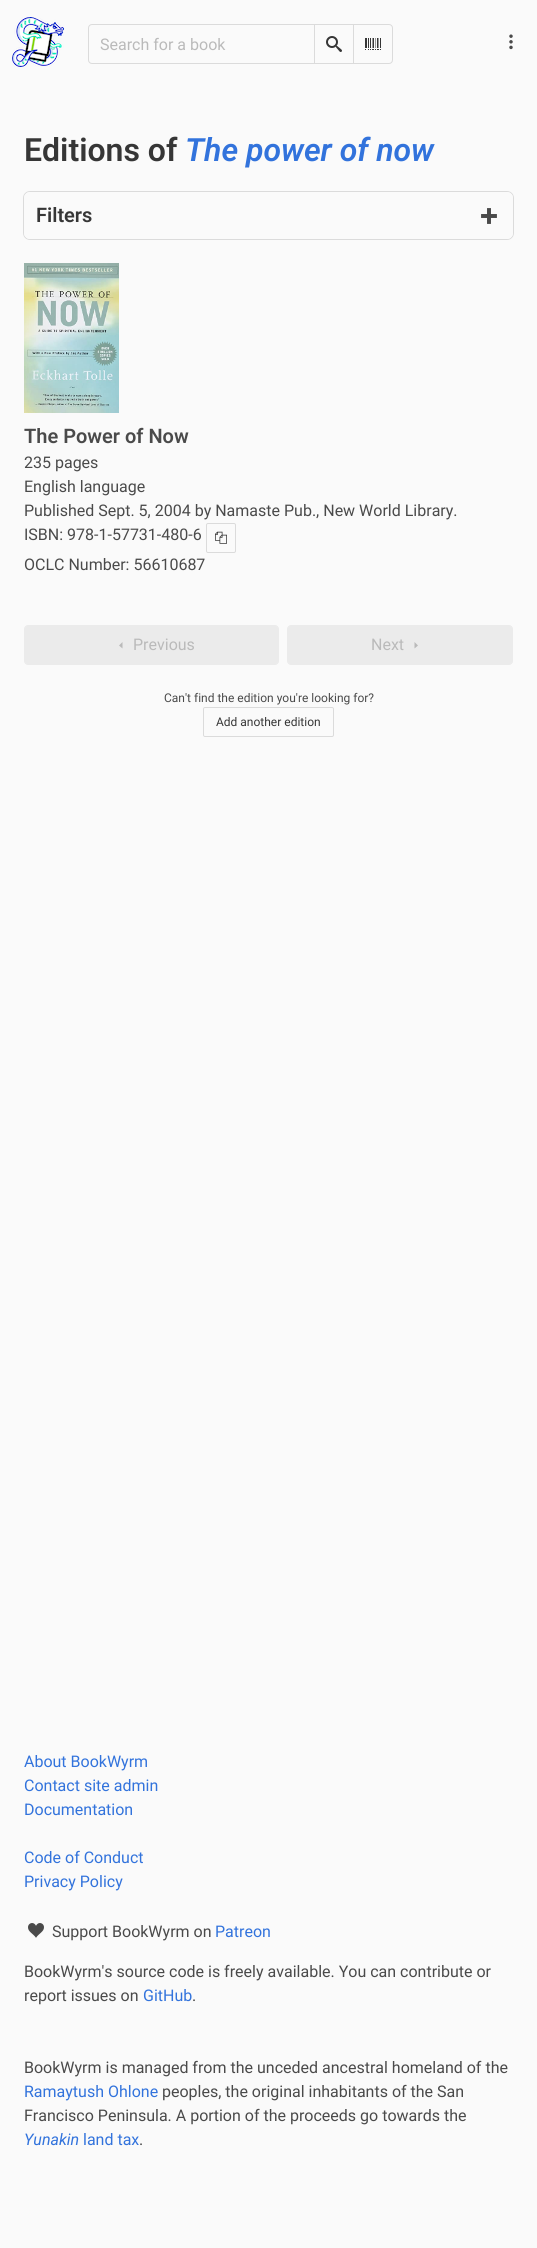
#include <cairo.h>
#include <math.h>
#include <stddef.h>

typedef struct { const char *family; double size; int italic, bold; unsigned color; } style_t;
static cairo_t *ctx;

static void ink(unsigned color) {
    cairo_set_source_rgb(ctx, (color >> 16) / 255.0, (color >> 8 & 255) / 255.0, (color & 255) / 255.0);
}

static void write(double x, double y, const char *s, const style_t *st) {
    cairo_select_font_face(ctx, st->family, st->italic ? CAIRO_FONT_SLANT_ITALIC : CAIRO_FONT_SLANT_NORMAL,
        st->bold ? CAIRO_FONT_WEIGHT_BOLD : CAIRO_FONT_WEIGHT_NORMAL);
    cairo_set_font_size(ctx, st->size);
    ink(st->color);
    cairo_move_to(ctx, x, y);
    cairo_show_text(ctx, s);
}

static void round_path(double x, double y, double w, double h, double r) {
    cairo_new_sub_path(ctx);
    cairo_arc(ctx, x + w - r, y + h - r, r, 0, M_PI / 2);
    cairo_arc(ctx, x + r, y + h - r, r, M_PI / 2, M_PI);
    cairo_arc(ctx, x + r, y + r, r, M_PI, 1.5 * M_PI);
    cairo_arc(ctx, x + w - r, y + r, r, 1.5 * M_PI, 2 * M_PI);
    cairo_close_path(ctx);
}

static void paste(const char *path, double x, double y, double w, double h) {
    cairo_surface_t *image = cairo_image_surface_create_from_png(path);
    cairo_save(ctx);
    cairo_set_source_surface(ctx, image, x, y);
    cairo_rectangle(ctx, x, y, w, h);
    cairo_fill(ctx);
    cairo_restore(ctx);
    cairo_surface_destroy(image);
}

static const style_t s1 = {"Roboto", 16, 0, 0, 0xbababa};
static const style_t s2 = {"Roboto SemiBold", 32, 0, 0, 0x363636};
static const style_t s3 = {"Roboto SemiBold", 32, 1, 0, 0x3273dc};
static const style_t s4 = {"Roboto SemiBold", 20, 0, 0, 0x363636};
static const style_t s5 = {"Roboto SemiBold", 20, 0, 0, 0x4a4a4a};
static const style_t s6 = {"Roboto", 16, 0, 0, 0x4a4a4a};
static const style_t s7 = {"Roboto", 12, 0, 0, 0x4a4a4a};
static const style_t s8 = {"Roboto", 12, 0, 0, 0x363636};
static const style_t s9 = {"Roboto", 16, 0, 0, 0x3273dc};
static const style_t s10 = {"Roboto", 16, 1, 0, 0x3273dc};

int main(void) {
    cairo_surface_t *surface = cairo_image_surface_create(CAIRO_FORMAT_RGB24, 537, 2248);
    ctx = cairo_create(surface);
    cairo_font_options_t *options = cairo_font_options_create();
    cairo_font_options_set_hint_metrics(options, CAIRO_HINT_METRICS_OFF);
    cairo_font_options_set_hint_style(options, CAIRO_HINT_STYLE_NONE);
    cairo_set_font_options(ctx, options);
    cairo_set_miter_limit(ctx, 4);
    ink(0xfafafa);
    cairo_paint(ctx);
    paste("pic1.png", 12, 17, 52, 50);
    cairo_new_path(ctx);
    cairo_move_to(ctx, 92, 24.5);
    cairo_line_to(ctx, 314.5, 24.5);
    cairo_line_to(ctx, 314.5, 63.5);
    cairo_line_to(ctx, 92, 63.5);
    cairo_curve_to(ctx, 90, 63.5, 88.5, 62, 88.5, 60);
    cairo_line_to(ctx, 88.5, 28);
    cairo_curve_to(ctx, 88.5, 26, 90, 24.5, 92, 24.5);
    cairo_close_path(ctx);
    ink(0xdbdbdb);
    cairo_set_line_width(ctx, 1);
    cairo_stroke(ctx);
    write(100, 50, "Search for a book", &s1);
    cairo_rectangle(ctx, 314.5, 24.5, 39, 39);
    ink(0xdbdbdb);
    cairo_stroke(ctx);
    paste("pic2.png", 326, 36, 16, 16);
    ink(0xfafafa);
    cairo_new_path(ctx);
    cairo_move_to(ctx, 353.5, 24.5);
    cairo_line_to(ctx, 389, 24.5);
    cairo_curve_to(ctx, 391, 24.5, 392.5, 26, 392.5, 28);
    cairo_line_to(ctx, 392.5, 60);
    cairo_curve_to(ctx, 392.5, 62, 391, 63.5, 389, 63.5);
    cairo_line_to(ctx, 353.5, 63.5);
    cairo_close_path(ctx);
    cairo_fill_preserve(ctx);
    ink(0xdbdbdb);
    cairo_stroke(ctx);
    paste("pic3.png", 365, 38, 16, 12);
    paste("pic4.png", 509, 34, 4, 16);
    write(24, 161, "Editions of", &s2);
    write(185, 161, "The power of now", &s3);
    round_path(23.5, 191.5, 490, 48, 6.5);
    ink(0xdbdbdb);
    cairo_stroke(ctx);
    ink(0xfafafa);
    round_path(24, 192, 489, 47, 6);
    cairo_fill(ctx);
    write(36, 222, "Filters", &s4);
    paste("pic5.png", 481, 208, 16, 16);
    paste("pic6.png", 24, 263, 95, 150);
    write(24, 443, "The Power of Now", &s5);
    write(24, 468, "235 pages", &s6);
    write(24, 492, "English language", &s6);
    write(24, 516, "Published Sept. 5, 2004 by Namaste Pub., New World Library.", &s6);
    write(24, 540, "ISBN: 978-1-57731-480-6", &s6);
    round_path(206.5, 523.5, 29, 29, 1.5);
    ink(0xdbdbdb);
    cairo_stroke(ctx);
    paste("pic7.png", 215, 531, 12, 13);
    write(24, 570, "OCLC Number: 56610687", &s6);
    ink(0xebebeb);
    round_path(24.5, 625.5, 254, 39, 3.5);
    cairo_fill_preserve(ctx);
    cairo_stroke(ctx);
    ink(0xbababa);
    cairo_new_path(ctx);
    cairo_move_to(ctx, 122.5, 642);
    cairo_line_to(ctx, 122.5, 648.5);
    cairo_line_to(ctx, 119, 645.5);
    cairo_close_path(ctx);
    cairo_fill(ctx);
    write(133, 650, "Previous", &s1);
    ink(0xebebeb);
    round_path(287.5, 625.5, 225, 39, 3.5);
    cairo_fill_preserve(ctx);
    cairo_stroke(ctx);
    write(371, 650, "Next", &s1);
    cairo_new_path(ctx);
    cairo_move_to(ctx, 414.5, 648.5);
    cairo_line_to(ctx, 414.5, 642);
    cairo_line_to(ctx, 418, 645.5);
    cairo_close_path(ctx);
    cairo_fill(ctx);
    write(164, 702, "Can't find the edition you're looking for?", &s7);
    round_path(203.5, 707.5, 130, 29, 1.5);
    ink(0xdbdbdb);
    cairo_stroke(ctx);
    write(216, 726, "Add another edition", &s8);
    write(24, 1767, "About BookWyrm", &s9);
    write(24, 1791, "Contact site admin", &s9);
    write(24, 1815, "Documentation", &s9);
    write(24, 1863, "Code of Conduct", &s9);
    write(24, 1887, "Privacy Policy", &s9);
    paste("pic8.png", 28, 1923, 16, 15);
    write(52, 1937, "Support BookWyrm on", &s6);
    write(215, 1937, "Patreon", &s9);
    write(24, 1977, "BookWyrm's source code is freely available. You can contribute or", &s6);
    write(24, 2001, "report issues on", &s6);
    write(143, 2001, "GitHub", &s9);
    write(192, 2001, ".", &s6);
    write(24, 2073, "BookWyrm is managed from the unceded ancestral homeland of the", &s6);
    write(24, 2097, "Ramaytush Ohlone", &s9);
    write(162, 2097, "peoples, the original inhabitants of the San", &s6);
    write(24, 2121, "Francisco Peninsula. A portion of the proceeds go towards the", &s6);
    write(24, 2145, "Yunakin", &s10);
    write(83, 2145, "land tax", &s9);
    write(139, 2145, ".", &s6);
    cairo_surface_write_to_png(surface, "screenshot.png");
    cairo_font_options_destroy(options);
    cairo_destroy(ctx);
    cairo_surface_destroy(surface);
    return 0;
}
